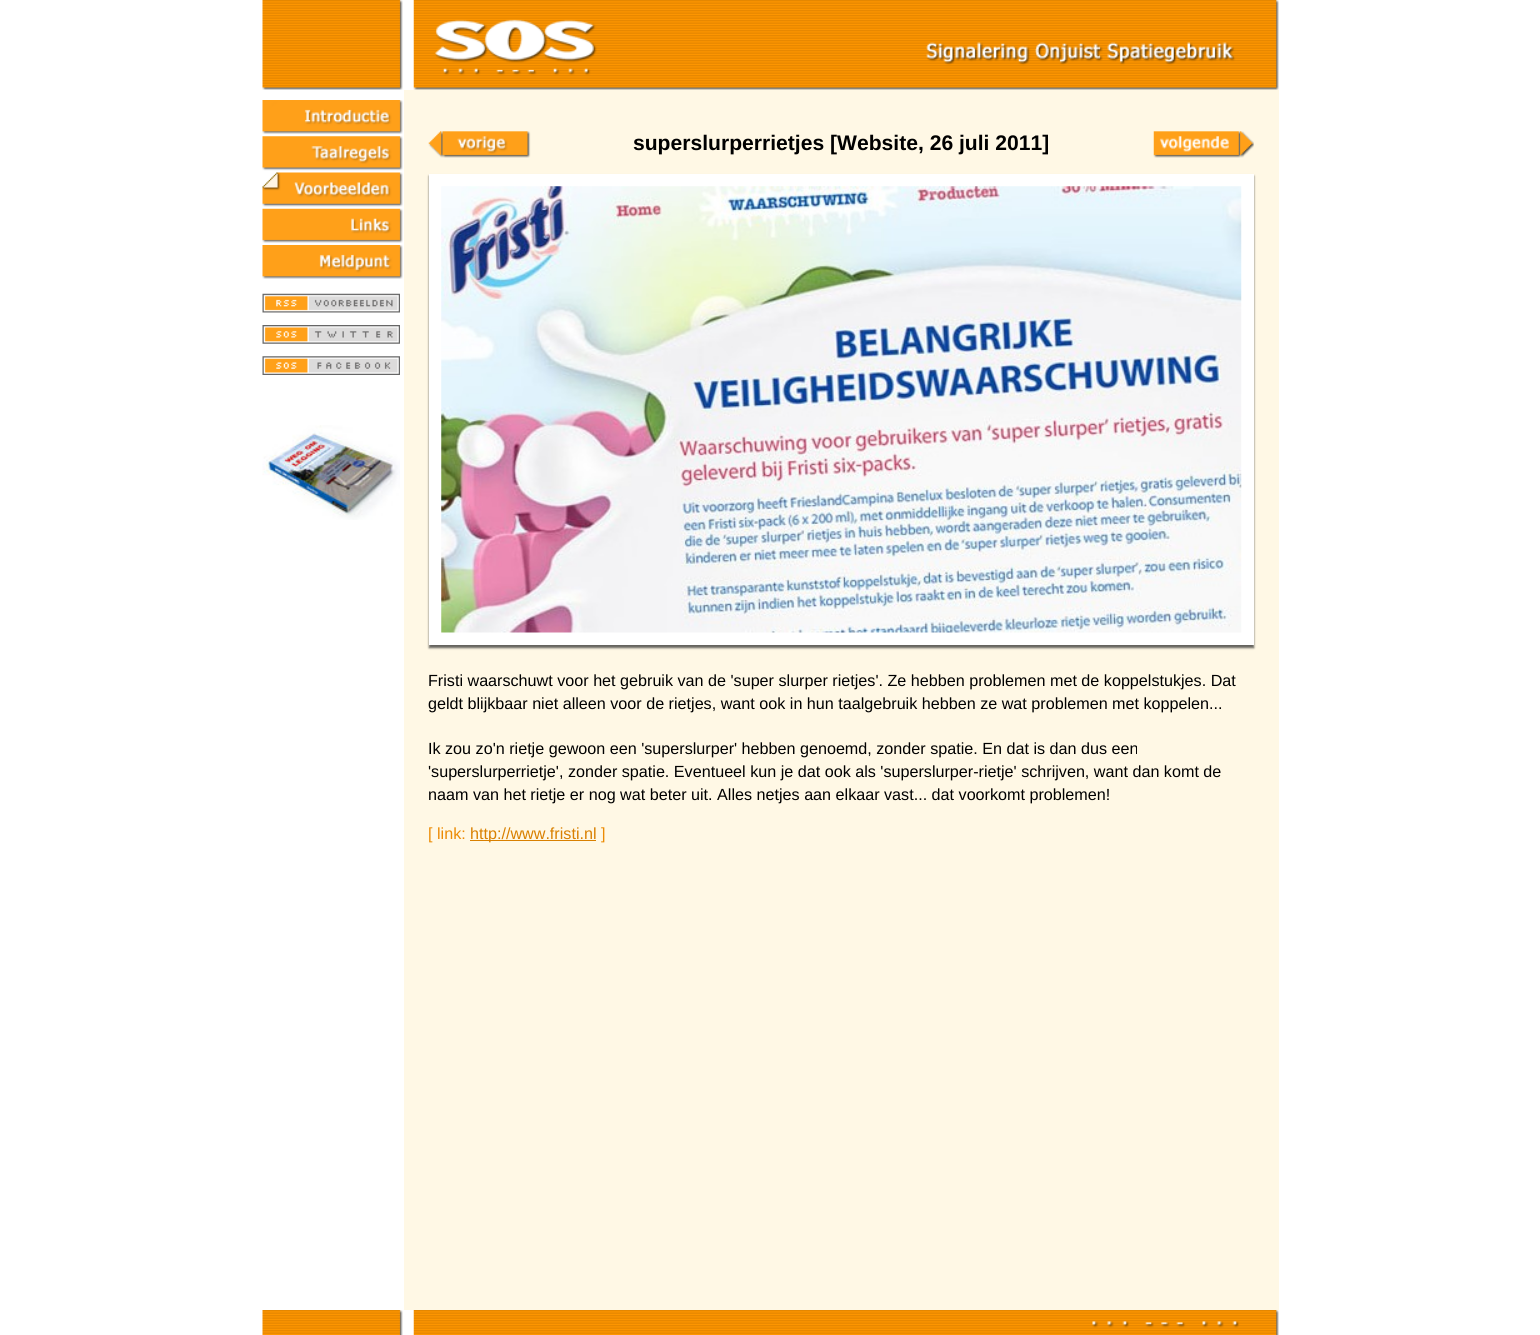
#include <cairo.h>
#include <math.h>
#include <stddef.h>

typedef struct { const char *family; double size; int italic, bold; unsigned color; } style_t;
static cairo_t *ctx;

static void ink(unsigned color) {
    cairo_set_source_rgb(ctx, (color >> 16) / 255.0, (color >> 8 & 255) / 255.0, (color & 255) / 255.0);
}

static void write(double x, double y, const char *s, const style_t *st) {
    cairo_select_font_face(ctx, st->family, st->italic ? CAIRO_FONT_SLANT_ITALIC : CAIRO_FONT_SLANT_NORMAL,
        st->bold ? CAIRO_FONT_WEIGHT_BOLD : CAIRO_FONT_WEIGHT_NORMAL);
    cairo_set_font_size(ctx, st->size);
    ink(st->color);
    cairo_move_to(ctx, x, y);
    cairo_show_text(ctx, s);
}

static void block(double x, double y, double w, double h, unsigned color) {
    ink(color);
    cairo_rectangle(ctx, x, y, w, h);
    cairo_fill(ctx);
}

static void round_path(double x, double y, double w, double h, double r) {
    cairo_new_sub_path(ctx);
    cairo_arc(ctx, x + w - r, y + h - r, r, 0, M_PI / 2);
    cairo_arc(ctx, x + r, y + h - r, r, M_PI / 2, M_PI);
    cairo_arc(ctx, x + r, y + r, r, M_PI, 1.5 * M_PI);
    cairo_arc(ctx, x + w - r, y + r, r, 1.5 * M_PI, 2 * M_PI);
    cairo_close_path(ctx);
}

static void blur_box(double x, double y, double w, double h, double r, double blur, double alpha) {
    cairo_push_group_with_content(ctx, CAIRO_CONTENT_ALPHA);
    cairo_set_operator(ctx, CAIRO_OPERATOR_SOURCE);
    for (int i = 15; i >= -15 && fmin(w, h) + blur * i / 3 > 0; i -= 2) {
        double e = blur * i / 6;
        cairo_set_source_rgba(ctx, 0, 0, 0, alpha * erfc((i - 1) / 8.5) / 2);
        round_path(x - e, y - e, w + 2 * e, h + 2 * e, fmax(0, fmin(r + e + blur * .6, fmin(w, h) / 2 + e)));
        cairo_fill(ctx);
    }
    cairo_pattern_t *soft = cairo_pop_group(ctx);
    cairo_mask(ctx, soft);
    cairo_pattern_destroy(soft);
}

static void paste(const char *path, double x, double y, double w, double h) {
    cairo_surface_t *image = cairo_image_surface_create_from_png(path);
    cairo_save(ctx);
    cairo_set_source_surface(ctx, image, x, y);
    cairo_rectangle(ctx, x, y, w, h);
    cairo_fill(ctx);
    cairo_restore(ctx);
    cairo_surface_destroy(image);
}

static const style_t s1 = {"Liberation Sans", 21.1, 0, 1, 0x000000};
static const style_t s2 = {"Liberation Sans", 16.15, 0, 0, 0x000000};
static const style_t s3 = {"Liberation Sans", 16.15, 0, 0, 0xec8b04};
static const style_t s4 = {"Liberation Sans", 16.15, 0, 0, 0xd98000};

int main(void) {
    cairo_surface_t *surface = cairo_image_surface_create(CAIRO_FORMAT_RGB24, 1540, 1335);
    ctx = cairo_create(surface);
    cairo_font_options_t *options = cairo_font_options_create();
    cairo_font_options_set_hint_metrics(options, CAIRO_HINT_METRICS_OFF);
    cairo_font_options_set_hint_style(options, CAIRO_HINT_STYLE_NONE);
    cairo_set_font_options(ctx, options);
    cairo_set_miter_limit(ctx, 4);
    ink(0xffffff);
    cairo_paint(ctx);
    paste("pic1.png", 262, 0, 1017, 90);
    paste("pic2.png", 262, 100, 141, 34);
    paste("pic3.png", 262, 136, 141, 35);
    paste("pic4.png", 262, 172, 141, 35);
    paste("pic5.png", 262, 208, 141, 35);
    paste("pic6.png", 262, 245, 141, 34);
    paste("pic7.png", 262, 293, 138, 20);
    paste("pic8.png", 262, 325, 138, 19);
    paste("pic9.png", 262, 356, 138, 19);
    paste("pic10.png", 262, 425, 138, 95);
    block(404, 90, 875, 1220, 0xfff8e5);
    paste("pic11.png", 428, 131, 103, 27);
    write(633, 150, "superslurperrietjes [Website, 26 juli 2011]", &s1);
    paste("pic12.png", 1153, 131, 101, 27);
    ink(0x323232);
    blur_box(429, 176, 825, 472, 0, 1, 0.75);
    cairo_rectangle(ctx, 435.5, 180.5, 812, 458);
    ink(0xffffff);
    cairo_set_line_width(ctx, 13);
    cairo_stroke(ctx);
    paste("pic13.png", 441, 186, 801, 447);
    write(428, 686, "Fristi waarschuwt voor het gebruik van de 'super slurper rietjes'. Ze hebben problemen met de koppelstukjes. Dat", &s2);
    write(428, 709, "geldt blijkbaar niet alleen voor de rietjes, want ook in hun taalgebruik hebben ze wat problemen met koppelen...", &s2);
    write(428, 754, "Ik zou zo'n rietje gewoon een 'superslurper' hebben genoemd, zonder spatie. En dat is dan dus een", &s2);
    write(428, 777, "'superslurperrietje', zonder spatie. Eventueel kun je dat ook als 'superslurper-rietje' schrijven, want dan komt de", &s2);
    write(428, 800, "naam van het rietje er nog wat beter uit. Alles netjes aan elkaar vast... dat voorkomt problemen!", &s2);
    write(428, 839, "[ link:", &s3);
    block(470, 840, 126, 1, 0xd98000);
    write(470, 839, "http://www.fristi.nl", &s4);
    write(601, 839, "]", &s3);
    paste("pic14.png", 262, 1310, 1017, 25);
    cairo_surface_write_to_png(surface, "screenshot.png");
    cairo_font_options_destroy(options);
    cairo_destroy(ctx);
    cairo_surface_destroy(surface);
    return 0;
}
